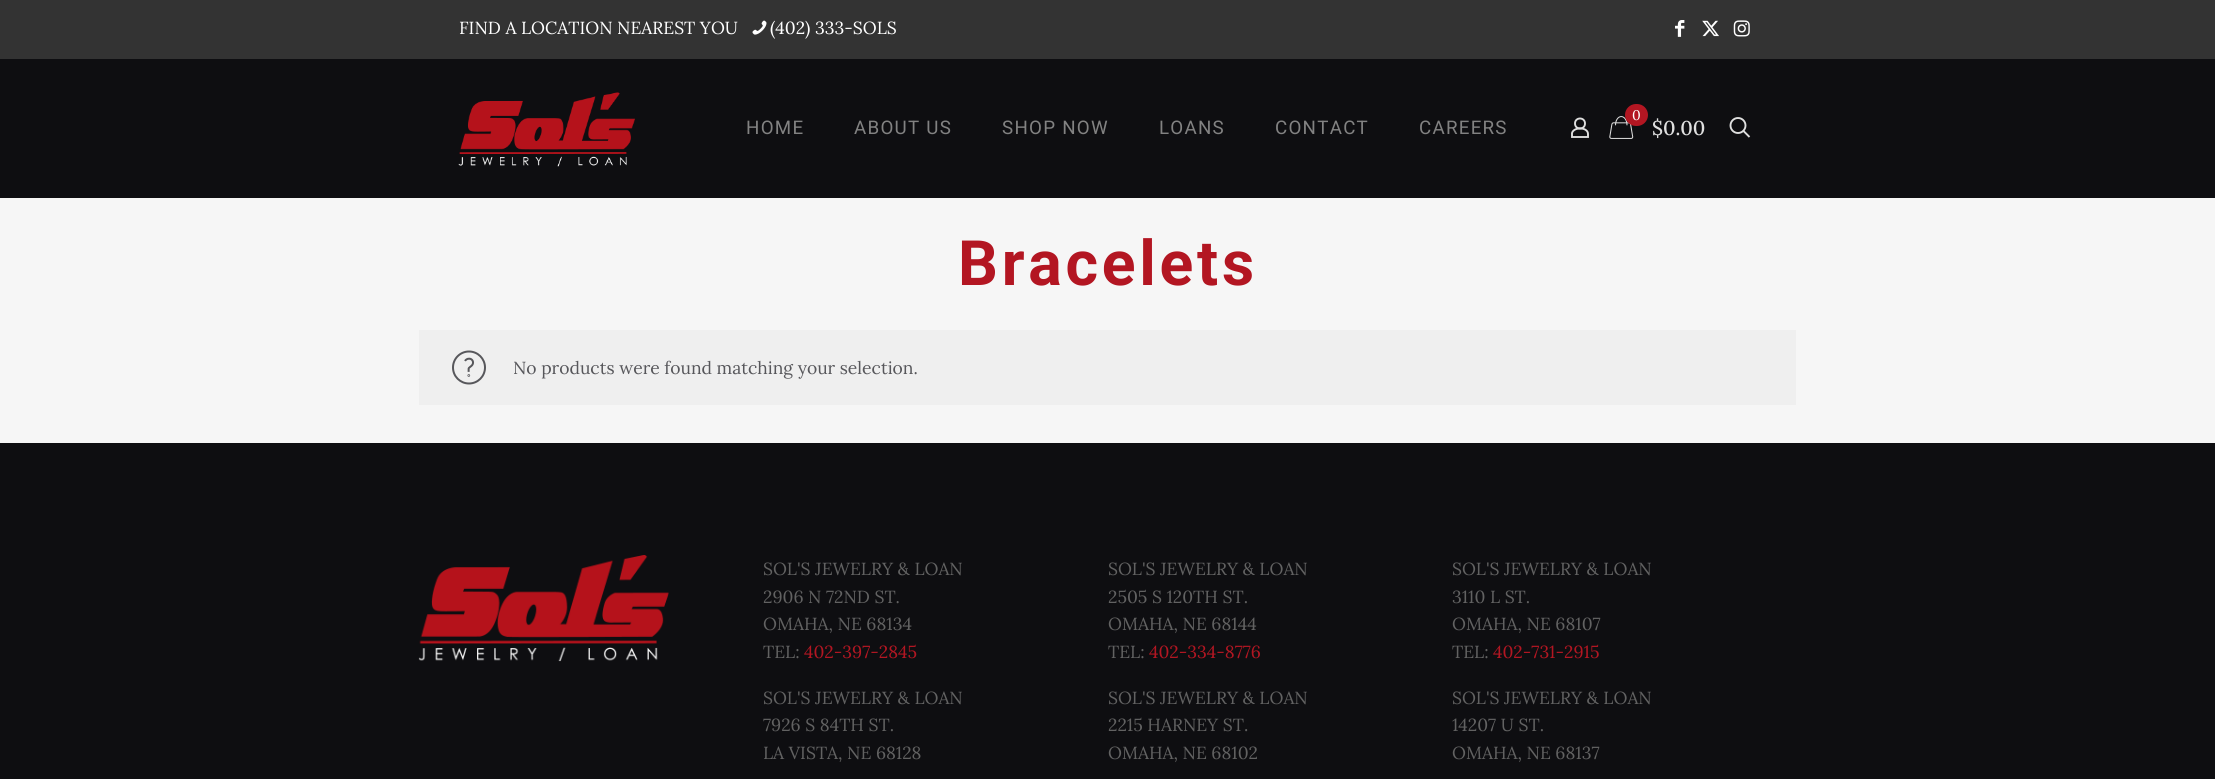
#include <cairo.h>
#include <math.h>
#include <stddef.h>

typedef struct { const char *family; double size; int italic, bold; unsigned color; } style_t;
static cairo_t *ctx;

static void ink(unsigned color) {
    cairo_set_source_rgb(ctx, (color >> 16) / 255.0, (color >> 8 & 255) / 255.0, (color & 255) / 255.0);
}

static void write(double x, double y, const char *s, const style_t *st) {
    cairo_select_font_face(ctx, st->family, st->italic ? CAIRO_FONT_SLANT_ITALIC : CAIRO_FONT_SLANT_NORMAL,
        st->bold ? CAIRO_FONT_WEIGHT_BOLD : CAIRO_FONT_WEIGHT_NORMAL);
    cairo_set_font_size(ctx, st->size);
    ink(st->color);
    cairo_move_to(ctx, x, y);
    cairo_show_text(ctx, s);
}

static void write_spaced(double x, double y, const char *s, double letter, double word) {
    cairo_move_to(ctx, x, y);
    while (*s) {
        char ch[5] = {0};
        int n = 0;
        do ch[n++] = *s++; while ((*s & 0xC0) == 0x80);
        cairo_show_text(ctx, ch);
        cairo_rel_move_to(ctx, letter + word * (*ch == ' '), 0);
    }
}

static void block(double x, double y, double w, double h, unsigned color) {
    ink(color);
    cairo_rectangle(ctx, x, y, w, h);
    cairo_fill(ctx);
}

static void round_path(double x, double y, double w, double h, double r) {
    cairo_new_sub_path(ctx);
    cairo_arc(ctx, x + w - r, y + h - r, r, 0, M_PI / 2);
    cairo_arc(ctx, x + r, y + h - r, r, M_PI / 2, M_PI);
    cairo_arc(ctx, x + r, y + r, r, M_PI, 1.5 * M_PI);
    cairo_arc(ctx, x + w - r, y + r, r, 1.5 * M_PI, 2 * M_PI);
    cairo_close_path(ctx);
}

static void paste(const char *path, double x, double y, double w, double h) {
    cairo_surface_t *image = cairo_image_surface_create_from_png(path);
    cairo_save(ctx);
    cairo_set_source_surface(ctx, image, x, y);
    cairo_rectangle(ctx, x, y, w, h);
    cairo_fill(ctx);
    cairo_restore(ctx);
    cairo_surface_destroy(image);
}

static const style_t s1 = {"Lora", 17.5, 0, 0, 0xffffff};
static const style_t s2 = {"Lora", 14, 0, 0, 0xffffff};
static const style_t s3 = {"Lora Medium", 20, 0, 0, 0xdfdfdf};
static const style_t s4 = {"Lora", 17.5, 0, 0, 0x57575b};
static const style_t s5 = {"Lora", 17.5, 0, 0, 0x626262};
static const style_t s6 = {"Lora", 17.5, 0, 0, 0xb31622};

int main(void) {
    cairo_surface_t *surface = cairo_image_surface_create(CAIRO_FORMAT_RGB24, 2215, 779);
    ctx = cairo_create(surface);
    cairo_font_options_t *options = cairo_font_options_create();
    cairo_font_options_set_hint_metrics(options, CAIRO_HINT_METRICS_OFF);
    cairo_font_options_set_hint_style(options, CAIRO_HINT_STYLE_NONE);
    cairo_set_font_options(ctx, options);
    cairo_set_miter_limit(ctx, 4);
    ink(0xf6f6f6);
    cairo_paint(ctx);
    block(0, 0, 2215, 59, 0x333333);
    write(459, 34, "FIND A LOCATION NEAREST YOU", &s1);
    paste("pic1.png", 752, 20, 15, 15);
    write(770, 34, "(402) 333-SOLS", &s1);
    paste("pic2.png", 1675, 20, 10, 17);
    paste("pic3.png", 1702, 20, 17, 17);
    paste("pic4.png", 1733, 20, 17, 17);
    block(0, 59, 2215, 139, 0x0e0e11);
    paste("pic5.png", 458, 92, 177, 75);
    cairo_select_font_face(ctx, "Roboto", CAIRO_FONT_SLANT_NORMAL, CAIRO_FONT_WEIGHT_NORMAL);
    cairo_set_font_size(ctx, 18.75);
    ink(0x828282);
    write_spaced(746, 134, "HOME", 1.25, 0);
    write_spaced(854, 134, "ABOUT US", 1.25, 0);
    write_spaced(1002, 134, "SHOP NOW", 1.25, 0);
    write_spaced(1159, 134, "LOANS", 1.25, 0);
    write_spaced(1275, 134, "CONTACT", 1.25, 0);
    write_spaced(1419, 134, "CAREERS", 1.25, 0);
    cairo_new_path(ctx);
    cairo_arc(ctx, 1580, 123.5, 5, 0, 2 * M_PI);
    ink(0xdfdfdf);
    cairo_set_line_width(ctx, 1.9);
    cairo_stroke(ctx);
    cairo_new_path(ctx);
    cairo_move_to(ctx, 1588, 134);
    cairo_line_to(ctx, 1588, 137);
    cairo_line_to(ctx, 1572, 137);
    cairo_line_to(ctx, 1572, 133);
    cairo_curve_to(ctx, 1574, 126.5, 1588, 127, 1588, 134);
    cairo_close_path(ctx);
    cairo_stroke(ctx);
    paste("pic6.png", 1609, 116, 25, 23);
    ink(0xb31622);
    round_path(1625, 104, 23, 22, 11);
    cairo_fill(ctx);
    write(1632, 120, "0", &s2);
    write(1652, 135, "$0.00", &s3);
    cairo_new_path(ctx);
    cairo_arc(ctx, 1738, 125.5, 7.5, 0, 2 * M_PI);
    cairo_stroke(ctx);
    cairo_new_path(ctx);
    cairo_move_to(ctx, 1743, 130.5);
    cairo_line_to(ctx, 1749.5, 137);
    cairo_stroke(ctx);
    cairo_select_font_face(ctx, "Roboto", CAIRO_FONT_SLANT_NORMAL, CAIRO_FONT_WEIGHT_BOLD);
    cairo_set_font_size(ctx, 62.5);
    ink(0xb31622);
    write_spaced(958, 285, "Bracelets", 3.75, 0);
    block(419, 330, 1377, 75, 0xefefef);
    paste("pic7.png", 452, 350, 34, 35);
    write(513, 374, "No products were found matching your selection.", &s4);
    block(0, 443, 2215, 336, 0x0e0e11);
    paste("pic8.png", 418, 555, 251, 107);
    write(763, 575, "SOL'S JEWELRY & LOAN", &s5);
    write(763, 603, "2906 N 72ND ST.", &s5);
    write(763, 630, "OMAHA, NE 68134", &s5);
    write(763, 658, "TEL:", &s5);
    write(804, 658, "402-397-2845", &s6);
    write(763, 704, "SOL'S JEWELRY & LOAN", &s5);
    write(763, 731, "7926 S 84TH ST.", &s5);
    write(763, 759, "LA VISTA, NE 68128", &s5);
    write(1108, 575, "SOL'S JEWELRY & LOAN", &s5);
    write(1108, 603, "2505 S 120TH ST.", &s5);
    write(1108, 630, "OMAHA, NE 68144", &s5);
    write(1108, 658, "TEL:", &s5);
    write(1149, 658, "402-334-8776", &s6);
    write(1108, 704, "SOL'S JEWELRY & LOAN", &s5);
    write(1108, 731, "2215 HARNEY ST.", &s5);
    write(1108, 759, "OMAHA, NE 68102", &s5);
    write(1452, 575, "SOL'S JEWELRY & LOAN", &s5);
    write(1452, 603, "3110 L ST.", &s5);
    write(1452, 630, "OMAHA, NE 68107", &s5);
    write(1452, 658, "TEL:", &s5);
    write(1493, 658, "402-731-2915", &s6);
    write(1452, 704, "SOL'S JEWELRY & LOAN", &s5);
    write(1452, 731, "14207 U ST.", &s5);
    write(1452, 759, "OMAHA, NE 68137", &s5);
    cairo_surface_write_to_png(surface, "screenshot.png");
    cairo_font_options_destroy(options);
    cairo_destroy(ctx);
    cairo_surface_destroy(surface);
    return 0;
}
